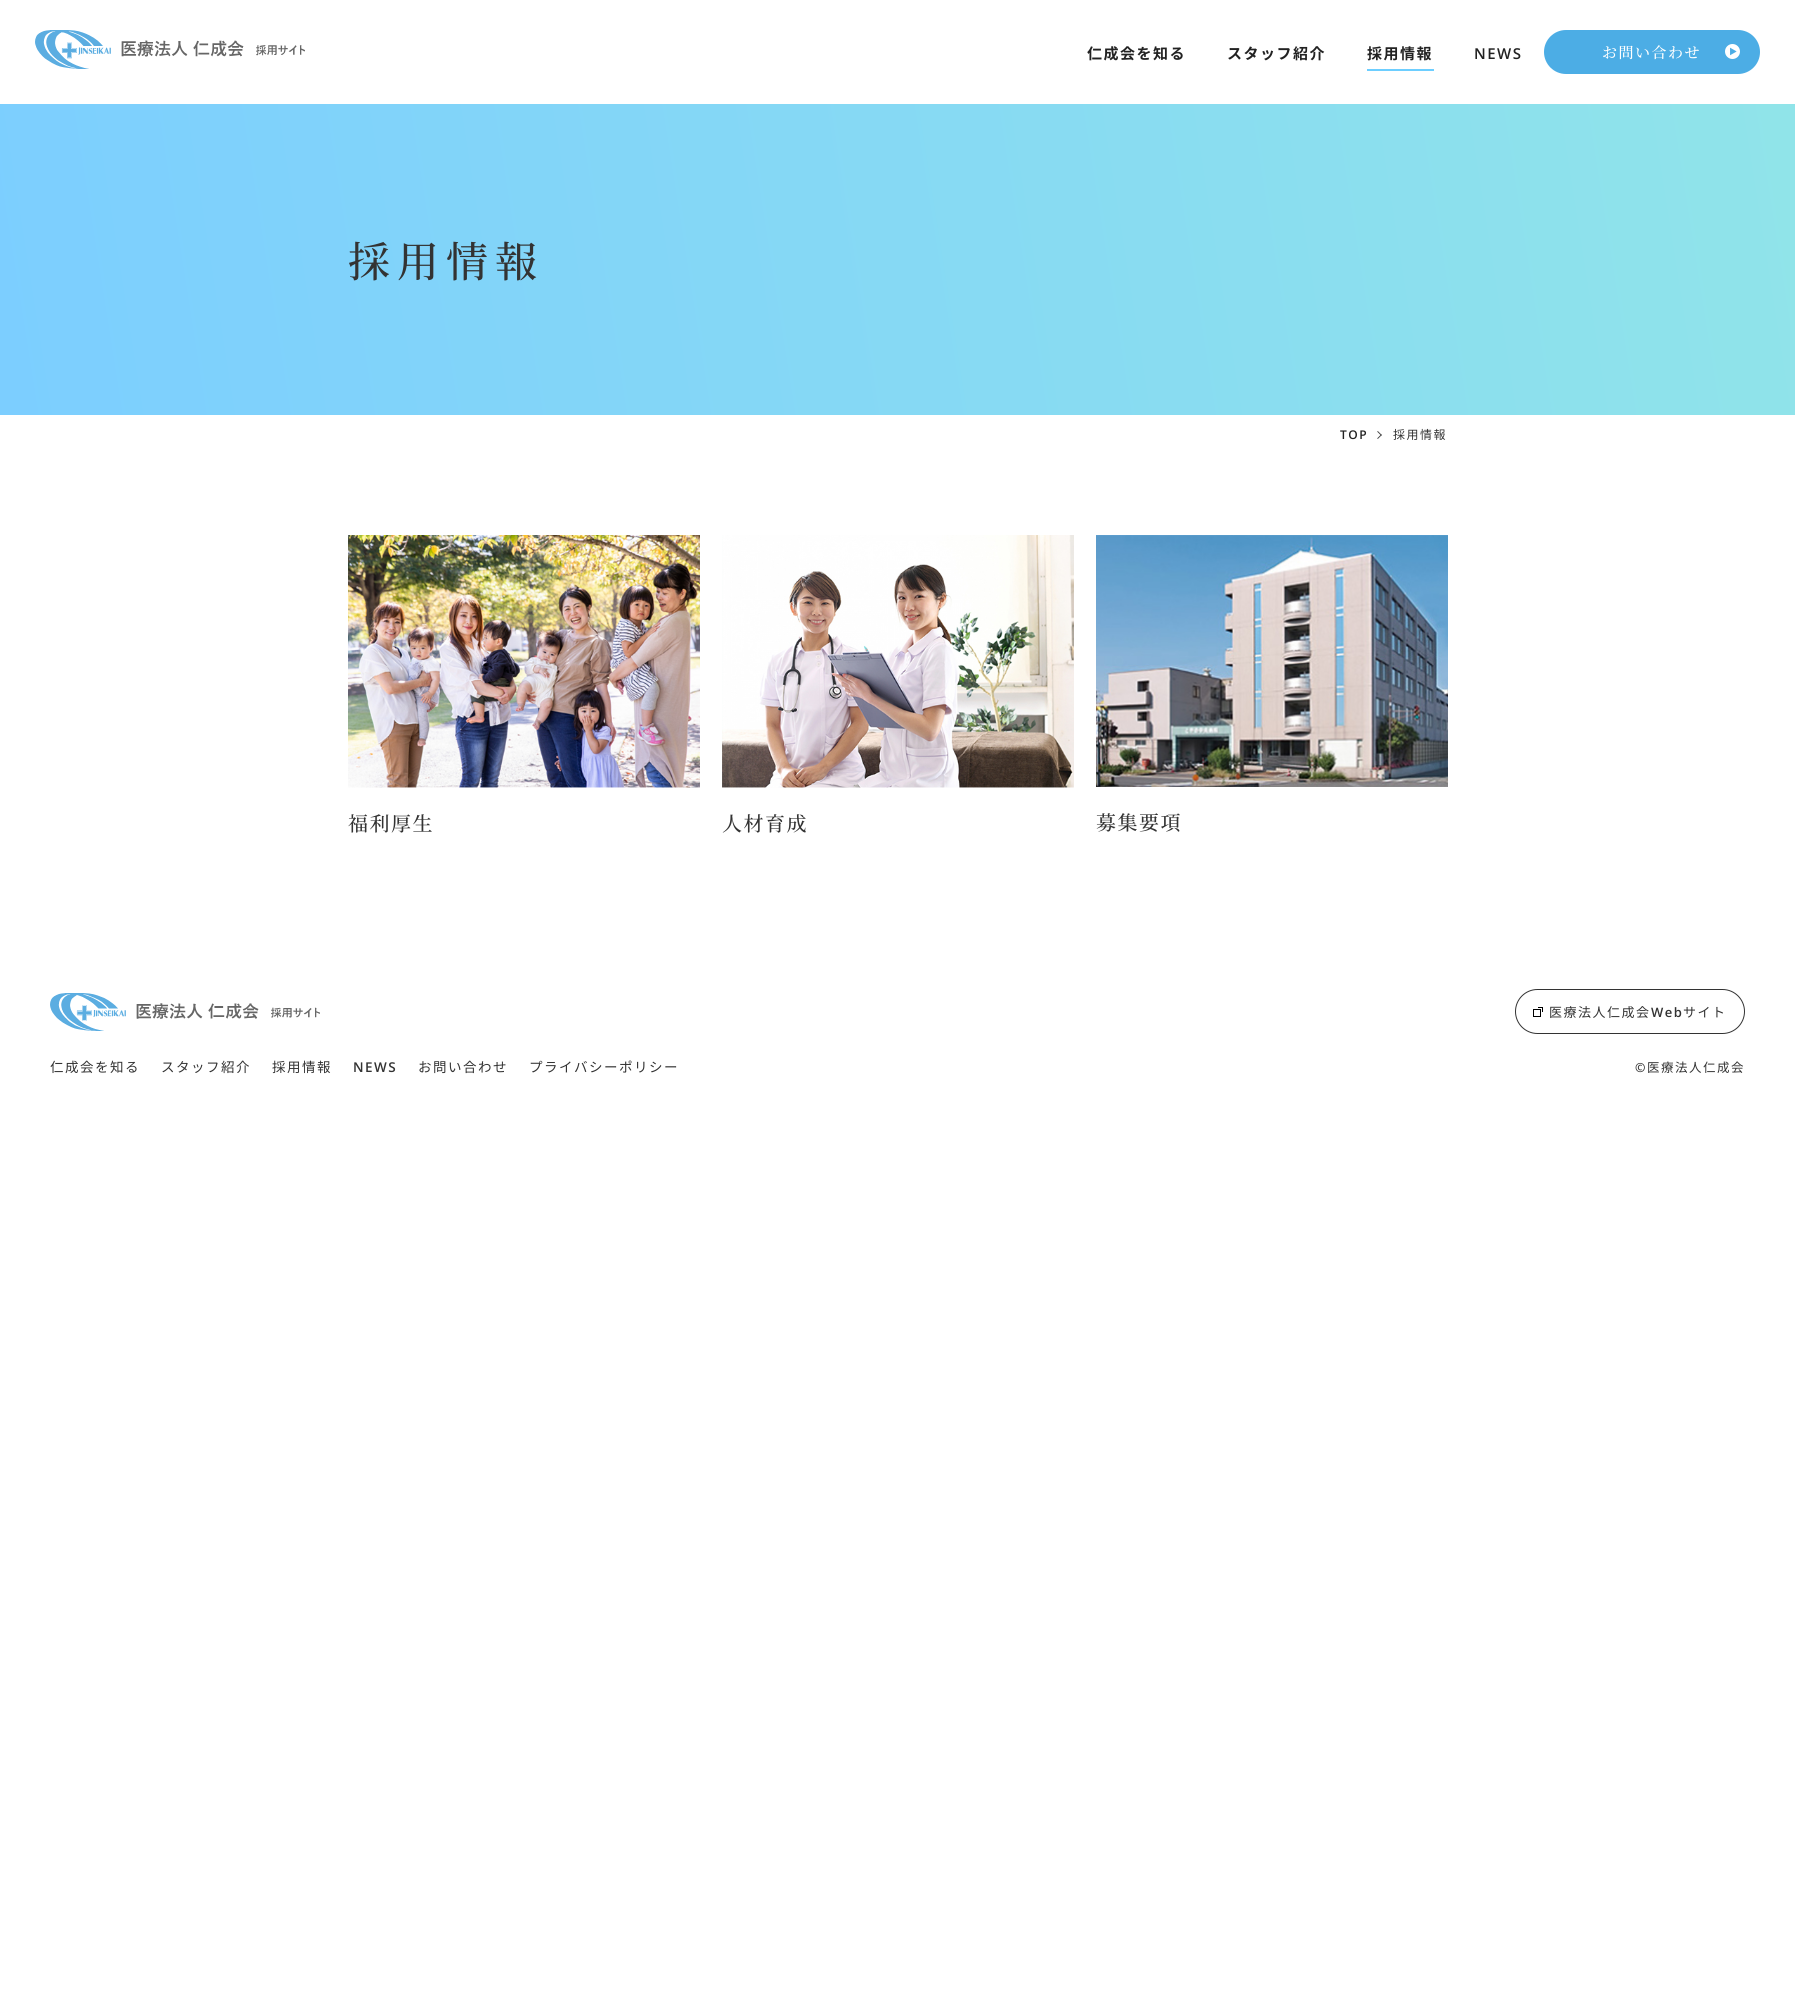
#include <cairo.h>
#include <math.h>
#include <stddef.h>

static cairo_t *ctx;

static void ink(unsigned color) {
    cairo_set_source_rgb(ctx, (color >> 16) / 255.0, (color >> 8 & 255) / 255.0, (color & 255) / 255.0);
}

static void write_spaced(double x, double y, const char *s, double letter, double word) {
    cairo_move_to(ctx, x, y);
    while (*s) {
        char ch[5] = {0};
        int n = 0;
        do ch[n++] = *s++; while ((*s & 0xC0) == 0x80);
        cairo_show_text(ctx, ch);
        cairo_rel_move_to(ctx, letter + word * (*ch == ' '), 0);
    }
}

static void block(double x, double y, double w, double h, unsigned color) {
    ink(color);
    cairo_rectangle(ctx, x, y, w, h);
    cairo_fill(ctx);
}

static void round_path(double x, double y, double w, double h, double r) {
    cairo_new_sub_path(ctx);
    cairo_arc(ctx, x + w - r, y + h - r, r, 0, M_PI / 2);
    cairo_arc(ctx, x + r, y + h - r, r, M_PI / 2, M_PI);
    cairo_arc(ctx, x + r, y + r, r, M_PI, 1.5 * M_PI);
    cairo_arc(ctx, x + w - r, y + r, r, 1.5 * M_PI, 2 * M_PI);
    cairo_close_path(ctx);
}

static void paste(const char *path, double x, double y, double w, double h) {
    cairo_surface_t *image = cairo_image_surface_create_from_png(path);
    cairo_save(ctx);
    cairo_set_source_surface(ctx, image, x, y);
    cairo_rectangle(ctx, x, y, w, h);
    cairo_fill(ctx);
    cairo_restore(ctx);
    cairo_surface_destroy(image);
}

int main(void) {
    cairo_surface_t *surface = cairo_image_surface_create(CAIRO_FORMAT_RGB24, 1795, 1995);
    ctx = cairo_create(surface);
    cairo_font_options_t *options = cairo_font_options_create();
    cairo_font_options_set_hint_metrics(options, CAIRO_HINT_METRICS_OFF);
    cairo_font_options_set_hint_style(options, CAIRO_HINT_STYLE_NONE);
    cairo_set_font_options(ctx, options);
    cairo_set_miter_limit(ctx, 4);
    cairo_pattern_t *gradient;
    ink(0xffffff);
    cairo_paint(ctx);
    paste("pic1.png", 35, 30, 270, 39);
    cairo_select_font_face(ctx, "Noto Sans JP", CAIRO_FONT_SLANT_NORMAL, CAIRO_FONT_WEIGHT_BOLD);
    cairo_set_font_size(ctx, 15);
    ink(0x222222);
    write_spaced(1087, 59, "仁成会を知る", 1.5, 0);
    write_spaced(1227, 59, "スタッフ紹介", 1.5, 0);
    write_spaced(1367, 59, "採用情報", 1.5, 0);
    block(1367, 69, 67, 2, 0x6dceff);
    cairo_select_font_face(ctx, "Open Sans SemiBold", CAIRO_FONT_SLANT_NORMAL, CAIRO_FONT_WEIGHT_NORMAL);
    ink(0x222222);
    write_spaced(1474, 59, "NEWS", 1.5, 0);
    ink(0x4cade5);
    round_path(1544, 30, 216, 44, 22);
    cairo_fill(ctx);
    paste("pic2.png", 1725, 44, 15, 15);
    cairo_select_font_face(ctx, "Noto Serif JP ExtraLight", CAIRO_FONT_SLANT_NORMAL, CAIRO_FONT_WEIGHT_NORMAL);
    ink(0xffffff);
    write_spaced(1602, 58, "お問い合わせ", 1.5, 0);
    gradient = cairo_pattern_create_linear(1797, 117, -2.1, 402);
    cairo_pattern_add_color_stop_rgba(gradient, 0, 0.565, 0.894, 0.914, 1);
    cairo_pattern_add_color_stop_rgba(gradient, 1, 0.486, 0.808, 1, 1);
    cairo_set_source(ctx, gradient);
    cairo_pattern_destroy(gradient);
    cairo_rectangle(ctx, 0, 104, 1795, 311);
    cairo_fill(ctx);
    cairo_set_font_size(ctx, 42);
    ink(0x333333);
    write_spaced(348, 277, "採用情報", 7, 0);
    cairo_select_font_face(ctx, "Open Sans SemiBold", CAIRO_FONT_SLANT_NORMAL, CAIRO_FONT_WEIGHT_NORMAL);
    cairo_set_font_size(ctx, 12);
    ink(0x222222);
    write_spaced(1340, 439, "TOP", 1.5, 0);
    paste("pic3.png", 1377, 431, 5, 8);
    cairo_select_font_face(ctx, "Noto Sans JP", CAIRO_FONT_SLANT_NORMAL, CAIRO_FONT_WEIGHT_NORMAL);
    ink(0x333333);
    write_spaced(1393, 439, "採用情報", 1.5, 0);
    paste("pic4.png", 348, 535, 352, 253);
    cairo_select_font_face(ctx, "Noto Serif JP ExtraLight", CAIRO_FONT_SLANT_NORMAL, CAIRO_FONT_WEIGHT_NORMAL);
    cairo_set_font_size(ctx, 20);
    write_spaced(348, 831, "福利厚生", 1.5, 0);
    paste("pic5.png", 722, 535, 352, 253);
    write_spaced(722, 831, "人材育成", 1.5, 0);
    paste("pic6.png", 1096, 535, 352, 252);
    write_spaced(1096, 830, "募集要項", 1.5, 0);
    paste("pic7.png", 50, 993, 270, 38);
    round_path(1515.5, 989.5, 229, 44, 22);
    cairo_set_line_width(ctx, 1);
    cairo_stroke(ctx);
    paste("pic8.png", 1533, 1007, 10, 10);
    cairo_select_font_face(ctx, "Noto Sans JP", CAIRO_FONT_SLANT_NORMAL, CAIRO_FONT_WEIGHT_NORMAL);
    cairo_set_font_size(ctx, 13);
    write_spaced(1549, 1017, "医療法人仁成会", 1.5, 0);
    cairo_select_font_face(ctx, "Open Sans SemiBold", CAIRO_FONT_SLANT_NORMAL, CAIRO_FONT_WEIGHT_NORMAL);
    write_spaced(1651, 1017, "Web", 1.5, 0);
    cairo_select_font_face(ctx, "Noto Sans JP", CAIRO_FONT_SLANT_NORMAL, CAIRO_FONT_WEIGHT_NORMAL);
    write_spaced(1683, 1017, "サイト", 1.5, 0);
    cairo_set_font_size(ctx, 13.5);
    write_spaced(50, 1072, "仁成会を知る", 1.5, 0);
    write_spaced(161, 1072, "スタッフ紹介", 1.5, 0);
    write_spaced(272, 1072, "採用情報", 1.5, 0);
    cairo_select_font_face(ctx, "Open Sans SemiBold", CAIRO_FONT_SLANT_NORMAL, CAIRO_FONT_WEIGHT_NORMAL);
    write_spaced(353, 1072, "NEWS", 1.5, 0);
    cairo_select_font_face(ctx, "Noto Sans JP", CAIRO_FONT_SLANT_NORMAL, CAIRO_FONT_WEIGHT_NORMAL);
    write_spaced(418, 1072, "お問い合わせ", 1.5, 0);
    write_spaced(529, 1072, "プライバシーポリシー", 1.5, 0);
    cairo_select_font_face(ctx, "Open Sans SemiBold", CAIRO_FONT_SLANT_NORMAL, CAIRO_FONT_WEIGHT_NORMAL);
    cairo_set_font_size(ctx, 12.5);
    write_spaced(1635, 1072, "©", 1.5, 0);
    cairo_select_font_face(ctx, "Noto Sans JP", CAIRO_FONT_SLANT_NORMAL, CAIRO_FONT_WEIGHT_NORMAL);
    write_spaced(1647, 1072, "医療法人仁成会", 1.5, 0);
    cairo_surface_write_to_png(surface, "screenshot.png");
    cairo_font_options_destroy(options);
    cairo_destroy(ctx);
    cairo_surface_destroy(surface);
    return 0;
}
